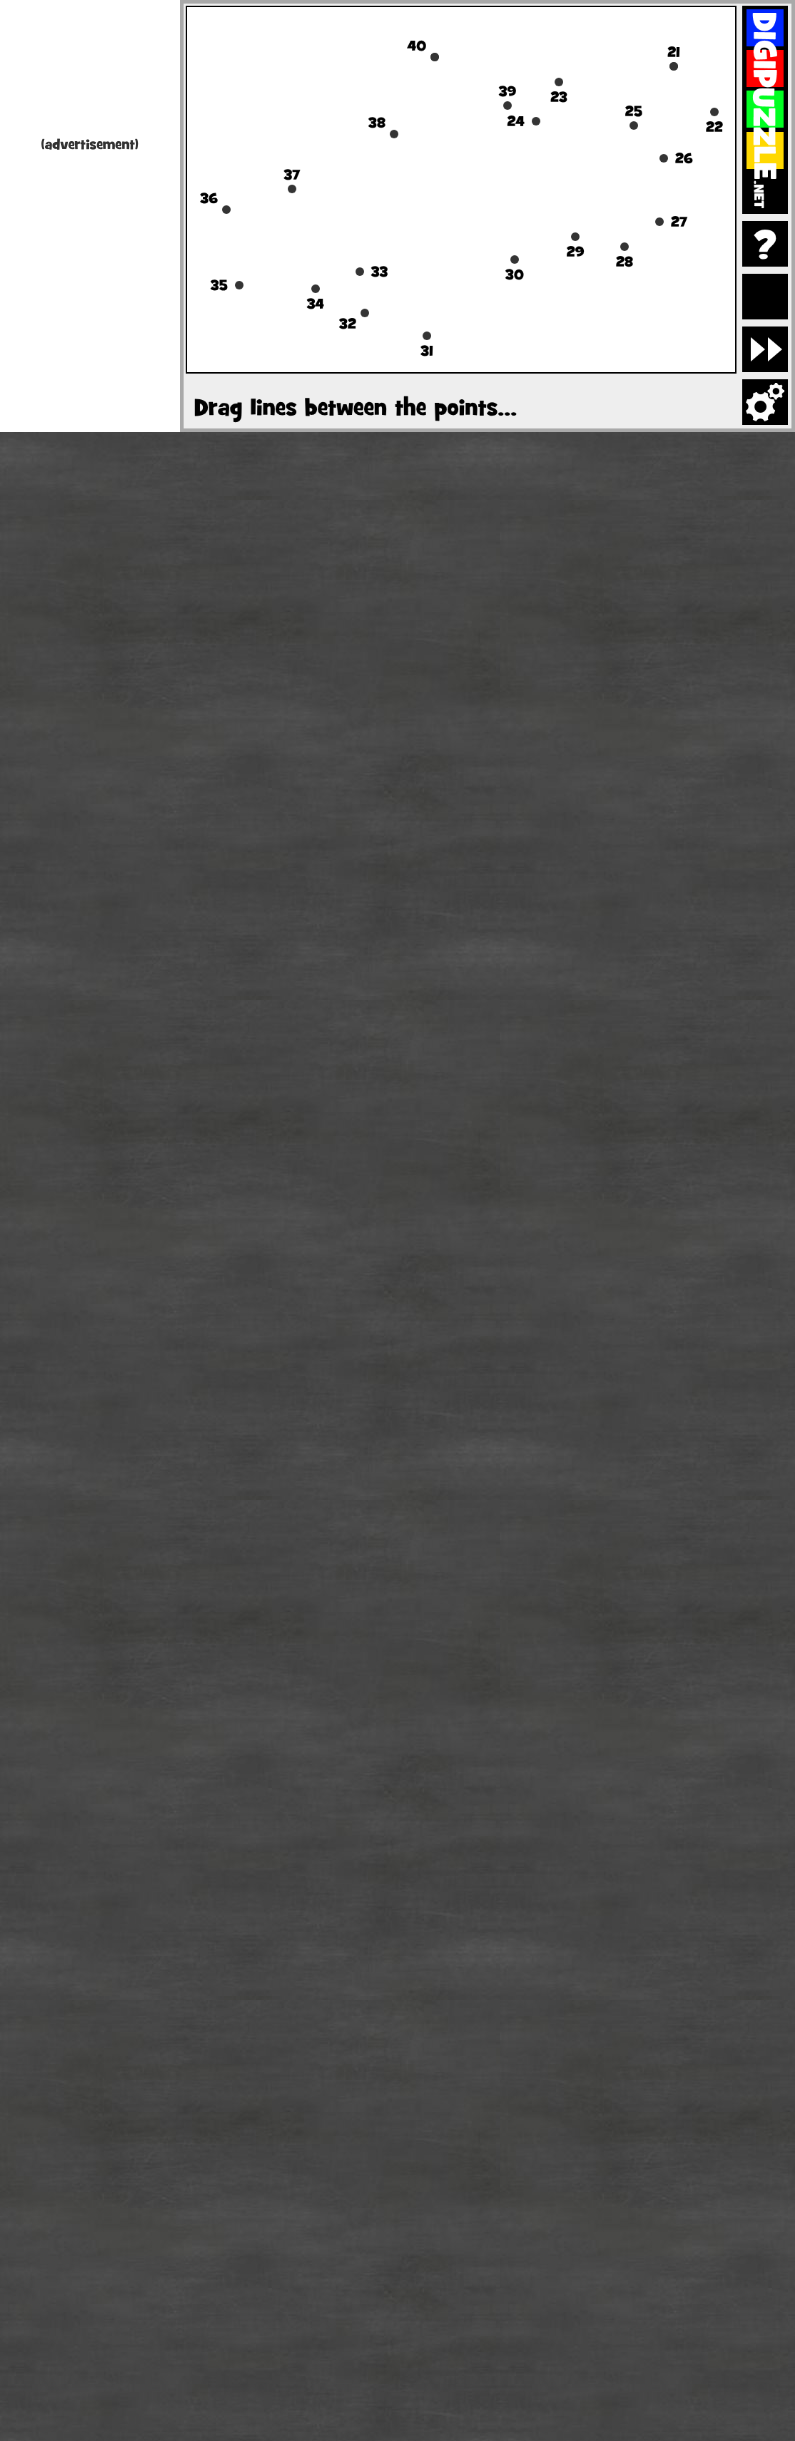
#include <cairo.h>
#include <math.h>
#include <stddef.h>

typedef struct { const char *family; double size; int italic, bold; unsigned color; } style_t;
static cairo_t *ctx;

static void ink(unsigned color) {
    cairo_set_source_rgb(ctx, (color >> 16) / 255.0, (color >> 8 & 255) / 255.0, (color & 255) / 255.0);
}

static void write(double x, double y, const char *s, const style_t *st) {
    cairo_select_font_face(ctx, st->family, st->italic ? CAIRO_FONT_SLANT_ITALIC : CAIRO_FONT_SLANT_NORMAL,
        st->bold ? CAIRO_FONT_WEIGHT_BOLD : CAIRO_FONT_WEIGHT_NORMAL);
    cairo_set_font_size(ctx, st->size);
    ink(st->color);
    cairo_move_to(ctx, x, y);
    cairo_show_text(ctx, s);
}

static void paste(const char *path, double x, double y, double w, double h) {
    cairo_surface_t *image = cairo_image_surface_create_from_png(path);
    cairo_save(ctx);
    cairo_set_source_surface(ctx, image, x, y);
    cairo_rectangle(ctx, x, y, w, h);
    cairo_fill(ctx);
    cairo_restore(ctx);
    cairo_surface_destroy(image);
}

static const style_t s1 = {"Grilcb", 14, 0, 0, 0x333333};

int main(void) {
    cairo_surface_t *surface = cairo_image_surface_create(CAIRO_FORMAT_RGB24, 795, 2441);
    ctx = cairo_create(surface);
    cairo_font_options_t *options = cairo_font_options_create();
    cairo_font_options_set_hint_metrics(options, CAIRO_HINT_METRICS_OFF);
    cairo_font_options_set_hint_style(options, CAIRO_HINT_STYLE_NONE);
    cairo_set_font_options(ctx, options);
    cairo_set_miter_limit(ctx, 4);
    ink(0xffffff);
    cairo_paint(ctx);
    paste("pic1.png", 0, 432, 795, 2009);
    write(41, 149, "(advertisement)", &s1);
    paste("pic2.png", 180, 0, 615, 432);
    paste("pic3.png", 194, 5, 594, 420);
    cairo_surface_write_to_png(surface, "screenshot.png");
    cairo_font_options_destroy(options);
    cairo_destroy(ctx);
    cairo_surface_destroy(surface);
    return 0;
}
